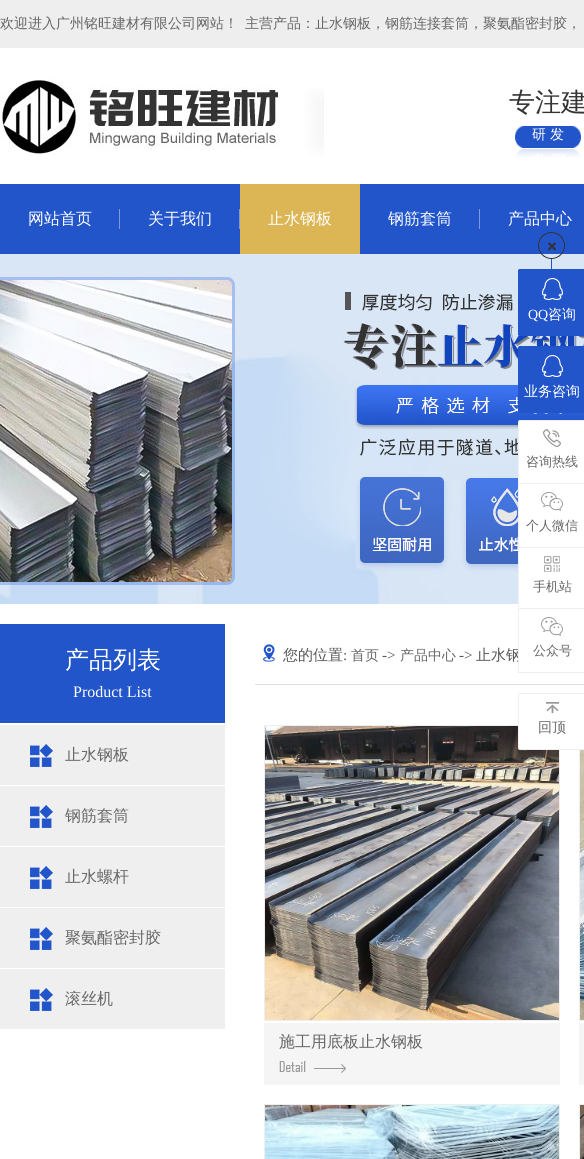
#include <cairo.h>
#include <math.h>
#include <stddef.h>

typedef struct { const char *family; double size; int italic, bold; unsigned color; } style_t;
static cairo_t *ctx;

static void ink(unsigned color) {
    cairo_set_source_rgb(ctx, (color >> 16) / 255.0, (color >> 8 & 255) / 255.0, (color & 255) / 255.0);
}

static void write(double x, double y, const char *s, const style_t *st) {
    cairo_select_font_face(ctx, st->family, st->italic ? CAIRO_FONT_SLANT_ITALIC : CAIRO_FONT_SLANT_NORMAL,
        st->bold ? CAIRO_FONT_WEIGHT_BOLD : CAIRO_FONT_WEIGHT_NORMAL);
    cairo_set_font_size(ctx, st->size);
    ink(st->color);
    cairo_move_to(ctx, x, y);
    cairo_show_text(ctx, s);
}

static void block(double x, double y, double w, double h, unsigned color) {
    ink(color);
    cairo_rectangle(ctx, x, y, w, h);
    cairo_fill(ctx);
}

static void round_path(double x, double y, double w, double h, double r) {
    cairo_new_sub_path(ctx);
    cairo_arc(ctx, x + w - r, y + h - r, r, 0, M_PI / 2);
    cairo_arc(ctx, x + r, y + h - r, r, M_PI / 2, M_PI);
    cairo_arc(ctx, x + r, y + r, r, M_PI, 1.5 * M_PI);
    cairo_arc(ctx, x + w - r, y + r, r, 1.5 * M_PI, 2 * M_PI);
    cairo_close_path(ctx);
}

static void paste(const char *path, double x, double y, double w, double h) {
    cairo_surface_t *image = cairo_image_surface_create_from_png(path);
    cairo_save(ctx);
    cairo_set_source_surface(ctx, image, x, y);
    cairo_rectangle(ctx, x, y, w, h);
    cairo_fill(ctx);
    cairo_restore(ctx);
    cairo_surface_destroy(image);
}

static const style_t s1 = {"WenQuanYi Zen Hei Medium", 14, 0, 0, 0x666666};
static const style_t s2 = {"WenQuanYi Zen Hei Medium", 26, 0, 0, 0x333333};
static const style_t s3 = {"WenQuanYi Zen Hei Medium", 14, 0, 0, 0xffffff};
static const style_t s4 = {"WenQuanYi Zen Hei Medium", 16, 0, 0, 0xffffff};
static const style_t s5 = {"Liberation Serif", 14, 0, 0, 0xffffff};
static const style_t s6 = {"WenQuanYi Zen Hei Medium", 13, 0, 0, 0x666666};
static const style_t s7 = {"WenQuanYi Zen Hei Medium", 15, 0, 0, 0x555555};
static const style_t s8 = {"WenQuanYi Zen Hei Medium", 24, 0, 0, 0xffffff};
static const style_t s9 = {"Liberation Serif", 16, 0, 0, 0xffffff};
static const style_t s10 = {"WenQuanYi Zen Hei Medium", 16, 0, 0, 0x666666};
static const style_t s11 = {"Liberation Serif", 15, 0, 0, 0x555555};

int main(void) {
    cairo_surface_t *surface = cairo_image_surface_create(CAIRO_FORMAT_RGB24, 584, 1159);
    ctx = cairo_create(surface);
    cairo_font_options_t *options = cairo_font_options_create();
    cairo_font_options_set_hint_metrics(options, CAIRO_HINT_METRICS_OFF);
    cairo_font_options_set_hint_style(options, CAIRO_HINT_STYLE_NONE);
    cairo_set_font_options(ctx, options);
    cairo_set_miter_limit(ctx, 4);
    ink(0xffffff);
    cairo_paint(ctx);
    block(0, 0, 584, 48, 0xeeeeee);
    write(0, 28, "欢迎进入广州铭旺建材有限公司网站！", &s1);
    write(245, 28, "主营产品：止水钢板，钢筋连接套筒，聚氨酯密封胶，", &s1);
    paste("pic1.png", 0, 78, 324, 78);
    write(509, 111, "专注建", &s2);
    paste("pic2.png", 515, 126, 66, 31);
    write(532, 139, "研", &s3);
    write(550, 139, "发", &s3);
    block(0, 184, 584, 70, 0x2255ca);
    block(119, 209, 1, 20, 0x7a99df);
    write(28, 224, "网站首页", &s4);
    block(239, 209, 1, 20, 0x7a99df);
    write(148, 224, "关于我们", &s4);
    block(240, 184, 120, 70, 0xdcb555);
    write(268, 224, "止水钢板", &s4);
    block(479, 209, 1, 20, 0x7a99df);
    write(388, 224, "钢筋套筒", &s4);
    write(508, 224, "产品中心", &s4);
    paste("pic3.png", 0, 254, 584, 350);
    paste("pic4.png", 538, 232, 27, 27);
    ink(0x2255ca);
    round_path(518, 269, 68, 67, 2);
    cairo_fill(ctx);
    block(551, 259, 1, 12, 0x2255ca);
    block(519, 269, 1, 1, 0x2255ca);
    block(518, 270, 1, 65, 0x2255ca);
    paste("pic5.png", 542, 278, 21, 22);
    write(528, 319, "QQ", &s5);
    write(548, 319, "咨询", &s3);
    ink(0x2255ca);
    round_path(518, 346, 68, 67, 2);
    cairo_fill(ctx);
    block(519, 346, 1, 1, 0x2255ca);
    block(518, 347, 1, 65, 0x2255ca);
    paste("pic5.png", 542, 355, 21, 22);
    write(524, 396, "业务咨询", &s3);
    cairo_new_path(ctx);
    cairo_move_to(ctx, 520, 420);
    cairo_line_to(ctx, 584, 420);
    cairo_curve_to(ctx, 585, 420, 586, 421, 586, 422);
    cairo_line_to(ctx, 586, 483);
    cairo_line_to(ctx, 518, 483);
    cairo_line_to(ctx, 518, 422);
    cairo_curve_to(ctx, 518, 421, 519, 420, 520, 420);
    cairo_close_path(ctx);
    cairo_fill(ctx);
    block(519, 420, 65, 1, 0xefefef);
    block(518, 421, 1, 62, 0xefefef);
    paste("pic6.png", 543, 429, 18, 18);
    write(526, 466, "咨询热线", &s6);
    block(519, 484, 65, 63, 0xffffff);
    block(518, 483, 66, 1, 0xefefef);
    block(518, 483, 1, 64, 0xefefef);
    paste("pic7.png", 541, 492, 22, 19);
    write(526, 530, "个人微信", &s6);
    ink(0xffffff);
    cairo_new_path(ctx);
    cairo_move_to(ctx, 518, 547);
    cairo_line_to(ctx, 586, 547);
    cairo_line_to(ctx, 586, 606);
    cairo_curve_to(ctx, 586, 607, 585, 608, 584, 608);
    cairo_line_to(ctx, 520, 608);
    cairo_curve_to(ctx, 519, 608, 518, 607, 518, 606);
    cairo_close_path(ctx);
    cairo_fill(ctx);
    block(518, 547, 66, 1, 0xefefef);
    block(518, 547, 1, 60, 0xefefef);
    paste("pic8.png", 544, 556, 16, 16);
    write(533, 591, "手机站", &s6);
    write(476, 660, "止水钢", &s7);
    block(519, 649, 2, 13, 0xffffff);
    cairo_rectangle(ctx, 518.5, 608.5, 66, 64);
    ink(0xefefef);
    cairo_set_line_width(ctx, 1);
    cairo_stroke(ctx);
    paste("pic7.png", 541, 617, 22, 19);
    write(533, 655, "公众号", &s6);
    cairo_rectangle(ctx, 264.5, 725.5, 295, 295);
    ink(0xeeeeee);
    cairo_stroke(ctx);
    paste("pic12.png", 265, 726, 294, 294);
    cairo_rectangle(ctx, 579.5, 725.5, 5, 295);
    cairo_stroke(ctx);
    ink(0xffffff);
    round_path(518.5, 693.5, 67, 56, 1.5);
    cairo_fill_preserve(ctx);
    ink(0xefefef);
    cairo_stroke(ctx);
    paste("pic9.png", 546, 702, 13, 11);
    write(538, 732, "回顶", &s1);
    block(0, 624, 225, 99, 0x2255ca);
    write(65, 668, "产品列表", &s8);
    write(73, 697, "Product List", &s9);
    block(0, 725, 225, 60, 0xefefef);
    paste("pic10.png", 30, 744, 23, 23);
    write(65, 760, "止水钢板", &s10);
    block(0, 786, 225, 60, 0xefefef);
    paste("pic10.png", 30, 805, 23, 23);
    write(65, 821, "钢筋套筒", &s10);
    block(0, 847, 225, 60, 0xefefef);
    paste("pic10.png", 30, 866, 23, 23);
    write(65, 882, "止水螺杆", &s10);
    block(0, 908, 225, 60, 0xefefef);
    paste("pic10.png", 30, 927, 23, 23);
    write(65, 943, "聚氨酯密封胶", &s10);
    block(0, 969, 225, 60, 0xefefef);
    paste("pic10.png", 30, 988, 23, 23);
    write(65, 1004, "滚丝机", &s10);
    block(255, 684, 329, 1, 0xdddddd);
    paste("pic11.png", 263, 644, 12, 18);
    write(283, 660, "您的位置", &s7);
    write(343, 660, ":", &s11);
    write(351, 660, "首页", &s1);
    write(382, 660, "->", &s11);
    write(400, 660, "产品中心", &s1);
    write(459, 660, "->", &s11);
    block(264, 1023, 296, 62, 0xf5f5f5);
    write(279, 1047, "施工用底板止水钢板", &s10);
    paste("pic13.png", 279, 1061, 67, 12);
    paste("pic14.png", 580, 750, 4, 270);
    block(579, 1023, 5, 62, 0xf5f5f5);
    cairo_rectangle(ctx, 264.5, 1104.5, 295, 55);
    ink(0xeeeeee);
    cairo_stroke(ctx);
    paste("pic15.png", 265, 1105, 294, 54);
    cairo_rectangle(ctx, 579.5, 1104.5, 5, 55);
    cairo_stroke(ctx);
    paste("pic16.png", 580, 1105, 4, 54);
    cairo_surface_write_to_png(surface, "screenshot.png");
    cairo_font_options_destroy(options);
    cairo_destroy(ctx);
    cairo_surface_destroy(surface);
    return 0;
}
